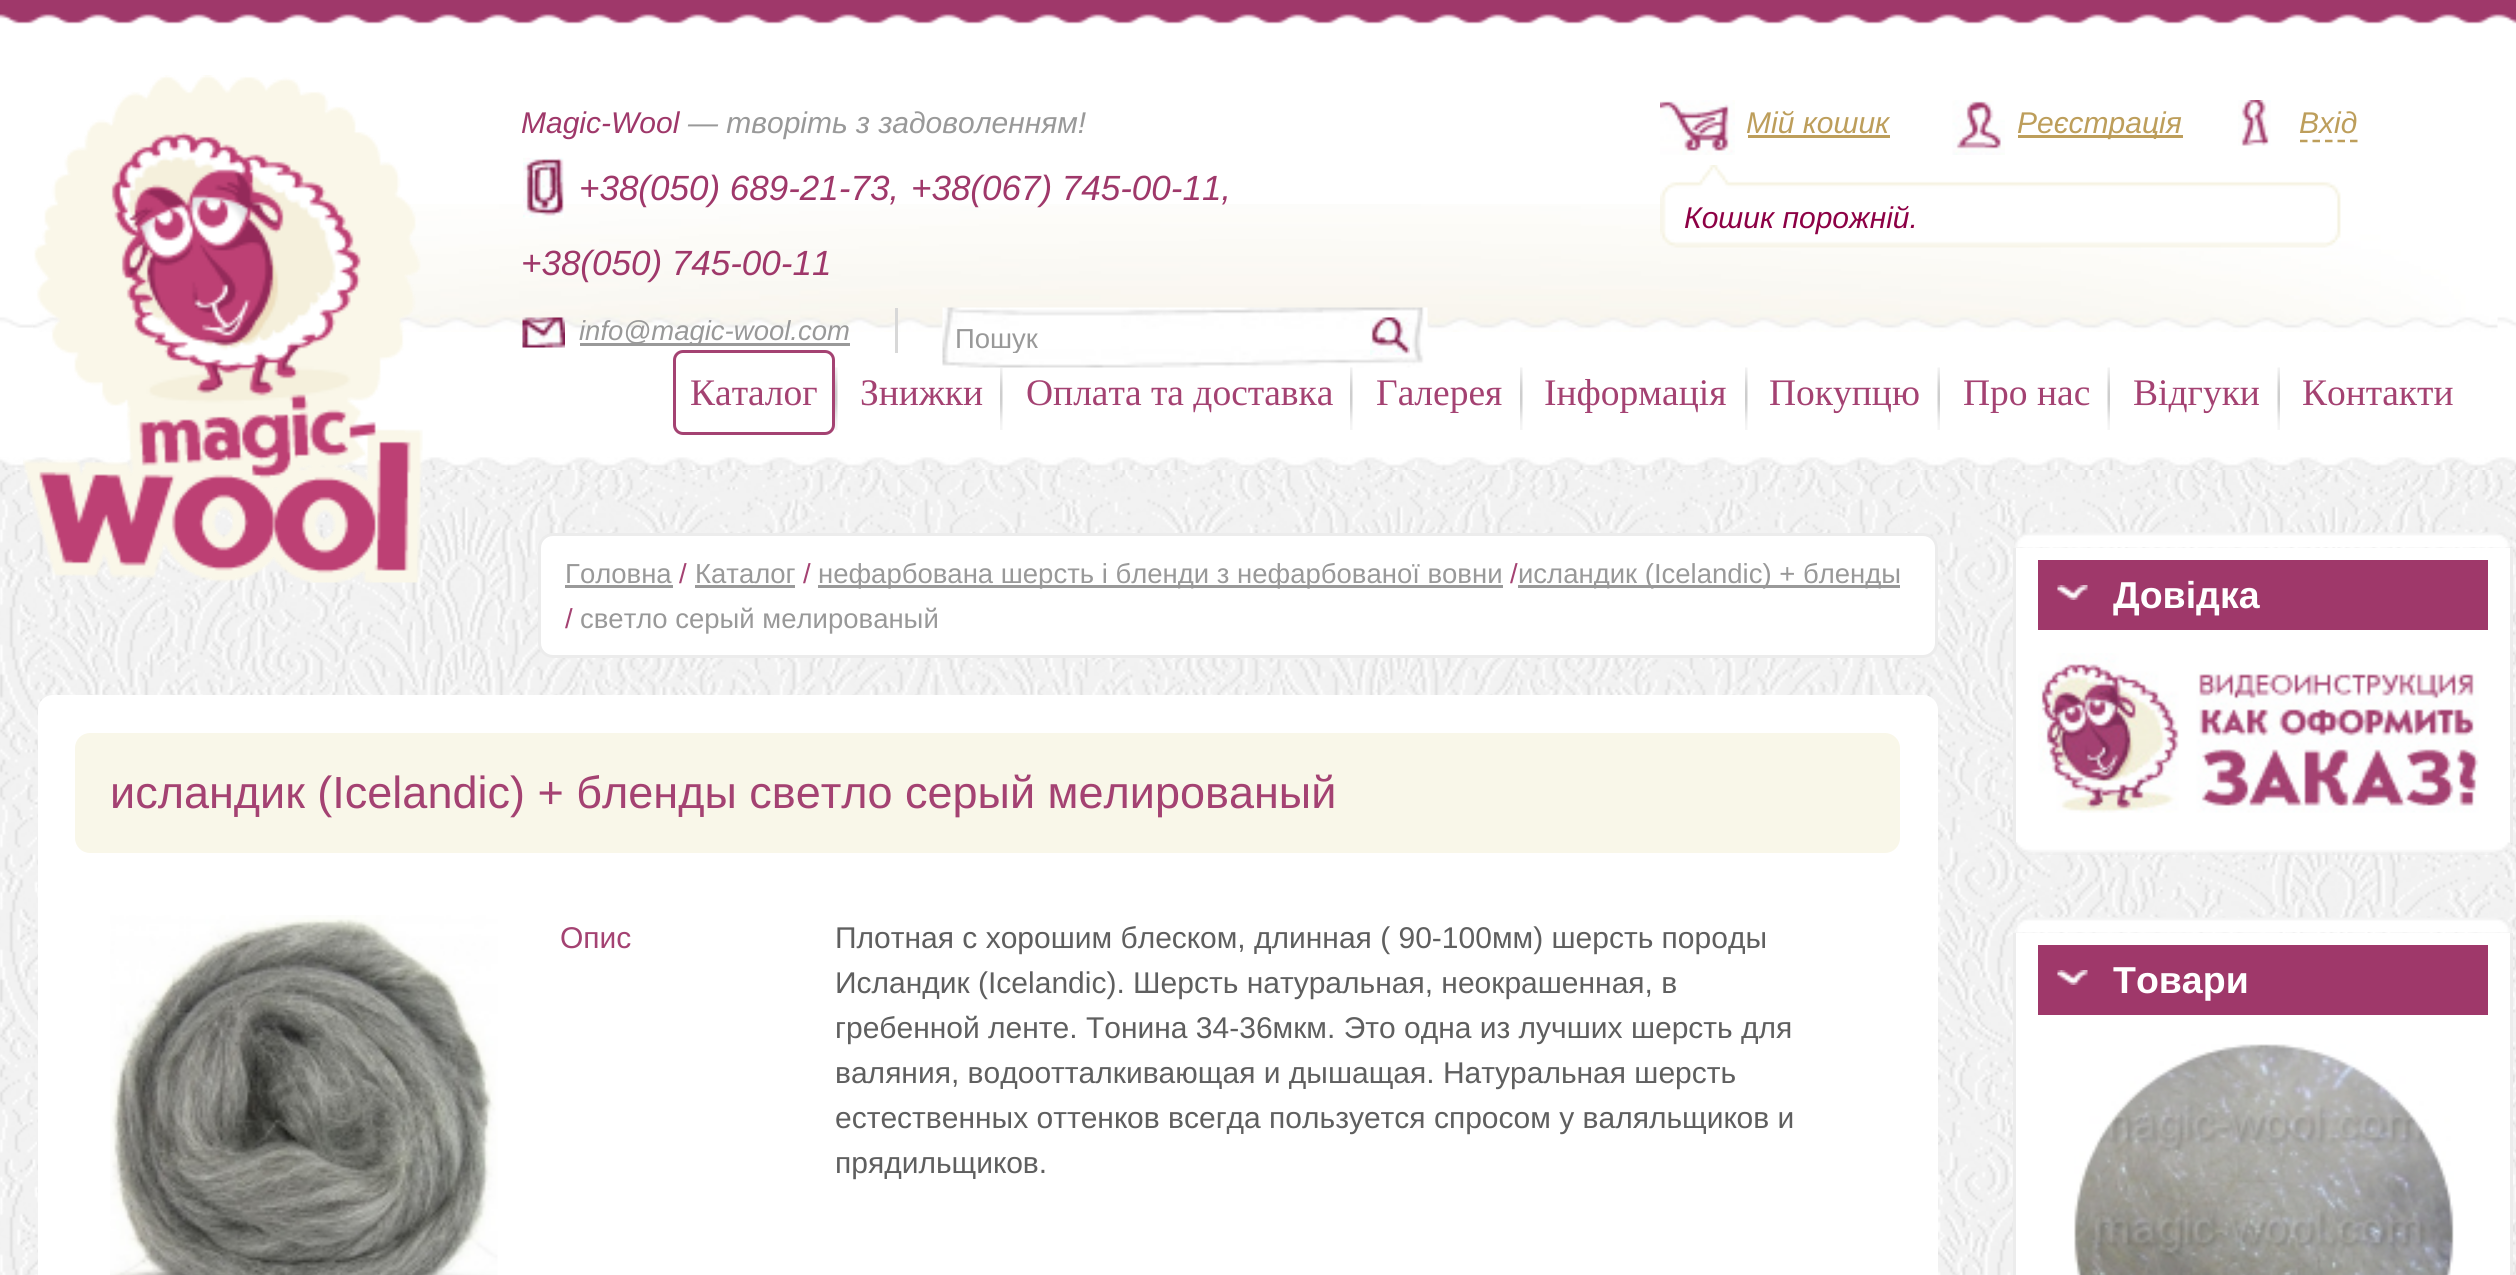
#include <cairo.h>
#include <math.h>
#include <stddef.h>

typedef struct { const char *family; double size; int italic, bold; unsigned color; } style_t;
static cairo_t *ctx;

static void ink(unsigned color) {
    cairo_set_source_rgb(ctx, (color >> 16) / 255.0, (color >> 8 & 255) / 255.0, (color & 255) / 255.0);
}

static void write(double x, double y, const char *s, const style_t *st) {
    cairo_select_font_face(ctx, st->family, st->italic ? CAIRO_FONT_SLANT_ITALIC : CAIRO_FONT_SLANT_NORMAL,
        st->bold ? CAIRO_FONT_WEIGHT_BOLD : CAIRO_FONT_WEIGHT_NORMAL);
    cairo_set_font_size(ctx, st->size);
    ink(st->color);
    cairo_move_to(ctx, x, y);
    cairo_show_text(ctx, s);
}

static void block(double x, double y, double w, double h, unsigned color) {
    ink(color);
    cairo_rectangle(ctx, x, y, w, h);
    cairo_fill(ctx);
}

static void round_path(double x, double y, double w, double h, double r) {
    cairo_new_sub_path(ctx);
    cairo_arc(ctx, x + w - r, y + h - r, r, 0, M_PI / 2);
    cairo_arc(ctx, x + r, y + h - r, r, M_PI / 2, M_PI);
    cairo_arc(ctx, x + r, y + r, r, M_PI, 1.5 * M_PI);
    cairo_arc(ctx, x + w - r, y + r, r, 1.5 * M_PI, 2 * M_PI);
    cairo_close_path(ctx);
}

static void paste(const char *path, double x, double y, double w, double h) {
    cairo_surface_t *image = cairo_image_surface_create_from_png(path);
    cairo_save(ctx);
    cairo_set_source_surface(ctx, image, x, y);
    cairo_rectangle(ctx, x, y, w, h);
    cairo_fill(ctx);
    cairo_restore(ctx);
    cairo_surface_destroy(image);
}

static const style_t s1 = {"Liberation Sans", 30, 1, 0, 0x9f386a};
static const style_t s2 = {"Liberation Sans", 30, 1, 0, 0x999999};
static const style_t s3 = {"Liberation Sans", 35, 1, 0, 0x9f386a};
static const style_t s4 = {"Liberation Sans", 27.5, 1, 0, 0x999999};
static const style_t s5 = {"Liberation Sans", 27.5, 0, 0, 0x999999};
static const style_t s6 = {"Liberation Sans", 30, 1, 0, 0xbd9e5b};
static const style_t s7 = {"Liberation Sans", 30, 1, 0, 0x8d0045};
static const style_t s8 = {"Liberation Serif", 37.5, 0, 0, 0xa44272};
static const style_t s9 = {"Liberation Sans", 27.5, 0, 0, 0xa44272};
static const style_t s10 = {"Liberation Sans", 45, 0, 0, 0xa44272};
static const style_t s11 = {"Liberation Sans", 30, 0, 0, 0xa44272};
static const style_t s12 = {"Liberation Sans", 30, 0, 0, 0x5f5f5f};
static const style_t s13 = {"Liberation Sans", 37.5, 0, 1, 0xffffff};

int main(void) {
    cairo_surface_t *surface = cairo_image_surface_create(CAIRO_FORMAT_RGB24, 2516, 1275);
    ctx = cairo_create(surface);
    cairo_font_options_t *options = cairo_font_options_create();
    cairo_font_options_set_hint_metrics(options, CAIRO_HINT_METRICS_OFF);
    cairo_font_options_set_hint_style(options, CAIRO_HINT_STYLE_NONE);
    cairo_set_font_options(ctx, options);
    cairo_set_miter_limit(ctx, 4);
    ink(0xffffff);
    cairo_paint(ctx);
    paste("pic1.png", 0, 0, 2516, 328);
    paste("pic2.png", 33, 204, 2465, 128);
    paste("pic15.png", 0, 457, 2516, 13);
    paste("pic16.png", 0, 470, 2516, 805);
    paste("pic3.png", 23, 75, 400, 508);
    write(521, 133, "Magic-Wool", &s1);
    write(688, 133, "— творіть з задоволенням!", &s2);
    paste("pic4.png", 523, 157, 41, 61);
    write(579, 200, "+38(050) 689-21-73,", &s3);
    write(911, 200, "+38(067) 745-00-11,", &s3);
    write(521, 275, "+38(050) 745-00-11", &s3);
    block(895, 308, 3, 45, 0xd8d8d8);
    paste("pic5.png", 522, 317, 43, 31);
    block(580, 343, 270, 3, 0x999999);
    write(579, 340, "info@magic-wool.com", &s4);
    paste("pic6.png", 942, 307, 486, 61);
    cairo_save(ctx);
    cairo_rectangle(ctx, 955, 323, 413, 30);
    cairo_clip(ctx);
    write(955, 348, "Пошук", &s5);
    cairo_restore(ctx);
    paste("pic7.png", 1370, 317, 40, 38);
    paste("pic8.png", 1660, 100, 75, 55);
    write(1746, 133, "Мій кошик", &s6);
    block(1748, 135, 142, 3, 0xbd9e5b);
    paste("pic9.png", 1660, 165, 681, 83);
    write(1684, 228, "Кошик порожній.", &s7);
    paste("pic10.png", 1952, 100, 53, 55);
    block(2018, 135, 165, 3, 0xbd9e5b);
    write(2017, 133, "Реєстрація", &s6);
    paste("pic11.png", 2238, 100, 33, 46);
    write(2299, 133, "Вхід", &s6);
    cairo_new_path(ctx);
    cairo_move_to(ctx, 2300, 141);
    cairo_line_to(ctx, 2357.5, 141);
    cairo_set_line_width(ctx, 2.5);
    cairo_set_dash(ctx, (double[]){7.5, 5}, 2, 0);
    cairo_stroke(ctx);
    round_path(674.5, 351.5, 159, 82, 8.5);
    ink(0xa44272);
    cairo_set_line_width(ctx, 3);
    cairo_set_dash(ctx, NULL, 0, 0);
    cairo_stroke(ctx);
    write(690, 405, "Каталог", &s8);
    paste("pic12.png", 835, 367, 3, 63);
    write(860, 405, "Знижки", &s8);
    paste("pic13.png", 1000, 368, 3, 62);
    write(1026, 405, "Оплата та доставка", &s8);
    paste("pic12.png", 1350, 367, 3, 63);
    write(1376, 405, "Галерея", &s8);
    paste("pic12.png", 1520, 367, 3, 63);
    write(1544, 405, "Інформація", &s8);
    paste("pic12.png", 1745, 367, 3, 63);
    write(1769, 405, "Покупцю", &s8);
    paste("pic14.png", 1937, 367, 3, 63);
    write(1963, 405, "Про нас", &s8);
    paste("pic14.png", 2107, 367, 3, 63);
    write(2133, 405, "Відгуки", &s8);
    paste("pic14.png", 2277, 367, 3, 63);
    write(2302, 405, "Контакти", &s8);
    ink(0xffffff);
    round_path(539.5, 534.5, 1397, 122, 13.5);
    cairo_fill_preserve(ctx);
    ink(0xececec);
    cairo_stroke(ctx);
    write(565, 583, "Головна", &s5);
    block(565, 585, 108, 3, 0x999999);
    write(679, 583, "/", &s9);
    write(695, 583, "Каталог", &s5);
    block(695, 585, 100, 3, 0x999999);
    write(803, 583, "/", &s9);
    block(818, 585, 685, 3, 0x999999);
    write(818, 583, "нефарбована шерсть і бленди з нефарбованої вовни", &s5);
    write(1510, 583, "/", &s9);
    block(1518, 585, 382, 3, 0x999999);
    write(1518, 583, "исландик (Icelandic) + бленды", &s5);
    write(565, 628, "/", &s9);
    write(580, 628, "светло серый мелированый", &s5);
    ink(0xffffff);
    round_path(38, 695, 1900, 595, 15);
    cairo_fill(ctx);
    ink(0xf9f7e9);
    round_path(75, 733, 1825, 120, 15);
    cairo_fill(ctx);
    write(110, 808, "исландик (Icelandic) + бленды светло серый мелированый", &s10);
    paste("pic17.png", 110, 915, 388, 360);
    write(560, 948, "Опис", &s11);
    write(835, 948, "Плотная с хорошим блеском, длинная ( 90-100мм) шерсть породы", &s12);
    write(835, 993, "Исландик (Icelandic). Шерсть натуральная, неокрашенная, в", &s12);
    write(835, 1038, "гребенной ленте. Тонина 34-36мкм. Это одна из лучших шерсть для", &s12);
    write(835, 1083, "валяния, водоотталкивающая и дышащая. Натуральная шерсть", &s12);
    write(835, 1128, "естественных оттенков всегда пользуется спросом у валяльщиков и", &s12);
    write(835, 1173, "прядильщиков.", &s12);
    paste("pic18.png", 2015, 532, 495, 16);
    block(2016, 548, 494, 295, 0xffffff);
    block(2510, 548, 3, 295, 0xececec);
    block(2013, 548, 3, 295, 0xececec);
    block(2038, 560, 450, 70, 0x9f386a);
    paste("pic19.png", 2057, 585, 31, 15);
    write(2113, 608, "Довідка", &s13);
    paste("pic20.png", 2038, 653, 441, 160);
    paste("pic21.png", 2014, 842, 497, 13);
    paste("pic22.png", 2016, 917, 496, 16);
    block(2016, 933, 494, 342, 0xffffff);
    block(2510, 933, 3, 342, 0xececec);
    block(2013, 933, 3, 342, 0xececec);
    block(2038, 945, 450, 70, 0x9f386a);
    paste("pic23.png", 2057, 970, 31, 15);
    write(2113, 993, "Товари", &s13);
    paste("pic24.png", 2074, 1044, 380, 231);
    cairo_surface_write_to_png(surface, "screenshot.png");
    cairo_font_options_destroy(options);
    cairo_destroy(ctx);
    cairo_surface_destroy(surface);
    return 0;
}
